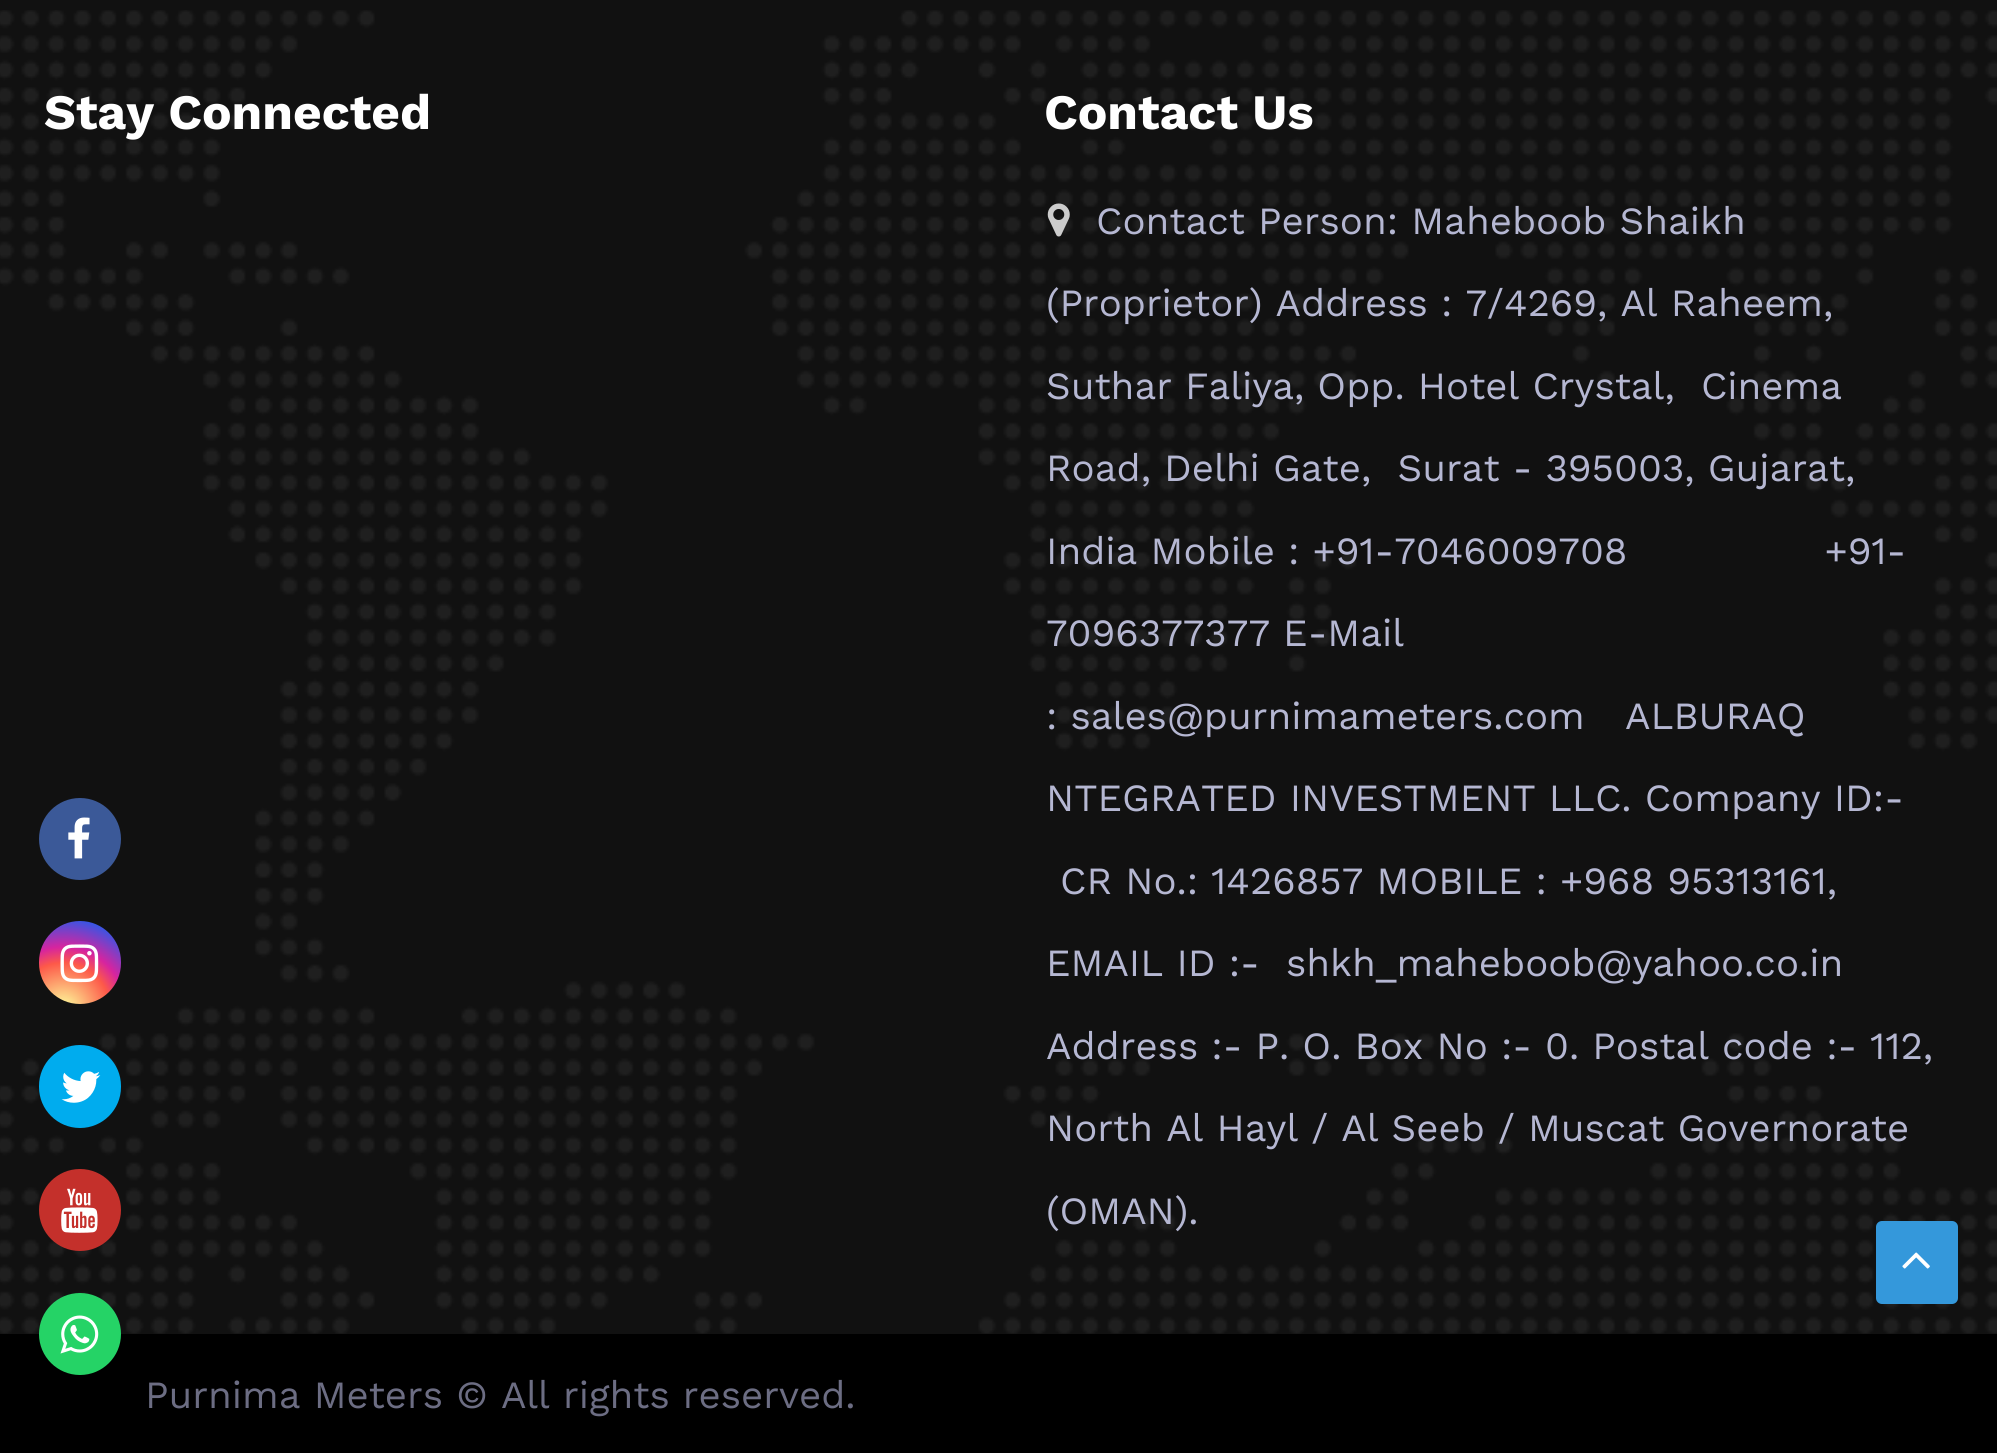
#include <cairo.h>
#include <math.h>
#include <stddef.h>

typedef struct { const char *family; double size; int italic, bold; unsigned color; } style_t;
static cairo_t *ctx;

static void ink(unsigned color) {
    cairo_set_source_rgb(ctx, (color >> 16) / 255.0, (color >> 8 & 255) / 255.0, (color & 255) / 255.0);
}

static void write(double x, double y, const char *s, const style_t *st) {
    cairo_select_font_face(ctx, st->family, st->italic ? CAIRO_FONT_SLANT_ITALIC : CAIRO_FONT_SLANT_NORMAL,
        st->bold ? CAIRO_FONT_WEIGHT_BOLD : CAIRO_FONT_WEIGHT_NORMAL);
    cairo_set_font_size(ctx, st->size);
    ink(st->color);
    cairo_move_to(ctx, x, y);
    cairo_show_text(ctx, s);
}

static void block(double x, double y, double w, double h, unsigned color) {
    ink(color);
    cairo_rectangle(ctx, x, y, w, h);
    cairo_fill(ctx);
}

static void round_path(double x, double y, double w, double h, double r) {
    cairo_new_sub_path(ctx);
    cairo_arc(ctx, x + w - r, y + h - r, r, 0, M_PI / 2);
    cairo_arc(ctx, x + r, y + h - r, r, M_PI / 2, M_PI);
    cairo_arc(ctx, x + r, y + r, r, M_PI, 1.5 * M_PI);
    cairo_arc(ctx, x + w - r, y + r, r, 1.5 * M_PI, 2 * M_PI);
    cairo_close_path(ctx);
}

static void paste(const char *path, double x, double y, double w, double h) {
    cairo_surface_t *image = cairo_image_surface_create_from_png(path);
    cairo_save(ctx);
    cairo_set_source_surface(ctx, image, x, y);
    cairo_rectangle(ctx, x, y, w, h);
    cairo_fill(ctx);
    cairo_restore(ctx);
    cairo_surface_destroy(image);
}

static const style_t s1 = {"Work Sans", 49.5, 0, 1, 0xffffff};
static const style_t s2 = {"Work Sans", 38.5, 0, 0, 0xb5b7d2};
static const style_t s3 = {"Work Sans", 38.5, 0, 0, 0x6c6d83};

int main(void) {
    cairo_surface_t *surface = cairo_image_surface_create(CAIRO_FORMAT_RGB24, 1997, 1453);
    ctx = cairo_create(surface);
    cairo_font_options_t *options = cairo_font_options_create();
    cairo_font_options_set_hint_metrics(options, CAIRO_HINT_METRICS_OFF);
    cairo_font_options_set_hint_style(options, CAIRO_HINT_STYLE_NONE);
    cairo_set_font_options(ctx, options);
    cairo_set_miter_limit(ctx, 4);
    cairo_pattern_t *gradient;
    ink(0x111111);
    cairo_paint(ctx);
    paste("pic1.png", 0, 10, 1997, 1324);
    write(44, 129, "Stay Connected", &s1);
    write(1044, 129, "Contact Us", &s1);
    paste("pic2.png", 1047, 203, 23, 34);
    write(1096, 234, "Contact Person: Maheboob Shaikh", &s2);
    write(1046, 316, "(Proprietor) Address : 7/4269, Al Raheem,", &s2);
    write(1046, 399, "Suthar Faliya, Opp. Hotel Crystal,  Cinema", &s2);
    write(1046, 481, "Road, Delhi Gate,  Surat - 395003, Gujarat,", &s2);
    write(1046, 564, "India Mobile : +91-7046009708               +91-", &s2);
    write(1046, 646, "7096377377 E-Mail", &s2);
    write(1046, 729, ": sales@purnimameters.com", &s2);
    write(1625, 729, "ALBURAQ", &s2);
    write(1046, 811, "NTEGRATED INVESTMENT LLC. Company ID:-", &s2);
    write(1060, 894, "CR No.: 1426857 MOBILE : +968 95313161,", &s2);
    write(1046, 976, "EMAIL ID :-  shkh_maheboob@yahoo.co.in", &s2);
    write(1046, 1059, "Address :- P. O. Box No :- 0. Postal code :- 112,", &s2);
    write(1046, 1141, "North Al Hayl / Al Seeb / Muscat Governorate", &s2);
    write(1046, 1224, "(OMAN).", &s2);
    ink(0x3b5998);
    cairo_new_path(ctx);
    cairo_arc(ctx, 80, 839, 41, 0, 2 * M_PI);
    cairo_fill(ctx);
    paste("pic3.png", 68, 817, 22, 42);
    gradient = cairo_pattern_create_radial(63, 1010, 0, 63, 1010, 105);
    cairo_pattern_add_color_stop_rgba(gradient, 0, 0.992, 0.957, 0.592, 1);
    cairo_pattern_add_color_stop_rgba(gradient, 0.05, 0.992, 0.957, 0.592, 1);
    cairo_pattern_add_color_stop_rgba(gradient, 0.45, 0.992, 0.349, 0.286, 1);
    cairo_pattern_add_color_stop_rgba(gradient, 0.6, 0.839, 0.141, 0.624, 1);
    cairo_pattern_add_color_stop_rgba(gradient, 0.9, 0.157, 0.353, 0.922, 1);
    cairo_set_source(ctx, gradient);
    cairo_pattern_destroy(gradient);
    round_path(39, 921, 82, 83, 41);
    cairo_fill(ctx);
    paste("pic4.png", 60, 944, 39, 39);
    ink(0x00acee);
    round_path(39, 1045, 82, 83, 41);
    cairo_fill(ctx);
    paste("pic5.png", 61, 1071, 40, 32);
    ink(0xc4302b);
    cairo_arc(ctx, 80, 1210, 41, 0, 2 * M_PI);
    cairo_fill(ctx);
    paste("pic6.png", 61, 1188, 37, 45);
    block(0, 1334, 1997, 119, 0x000000);
    ink(0x25d366);
    cairo_arc(ctx, 80, 1334, 41, 0, 2 * M_PI);
    cairo_fill(ctx);
    paste("pic7.png", 60, 1315, 39, 39);
    ink(0x3498db);
    round_path(1876, 1221, 82, 83, 6);
    cairo_fill(ctx);
    paste("pic8.png", 1902, 1252, 28, 17);
    write(145, 1408, "Purnima Meters © All rights reserved.", &s3);
    cairo_surface_write_to_png(surface, "screenshot.png");
    cairo_font_options_destroy(options);
    cairo_destroy(ctx);
    cairo_surface_destroy(surface);
    return 0;
}
